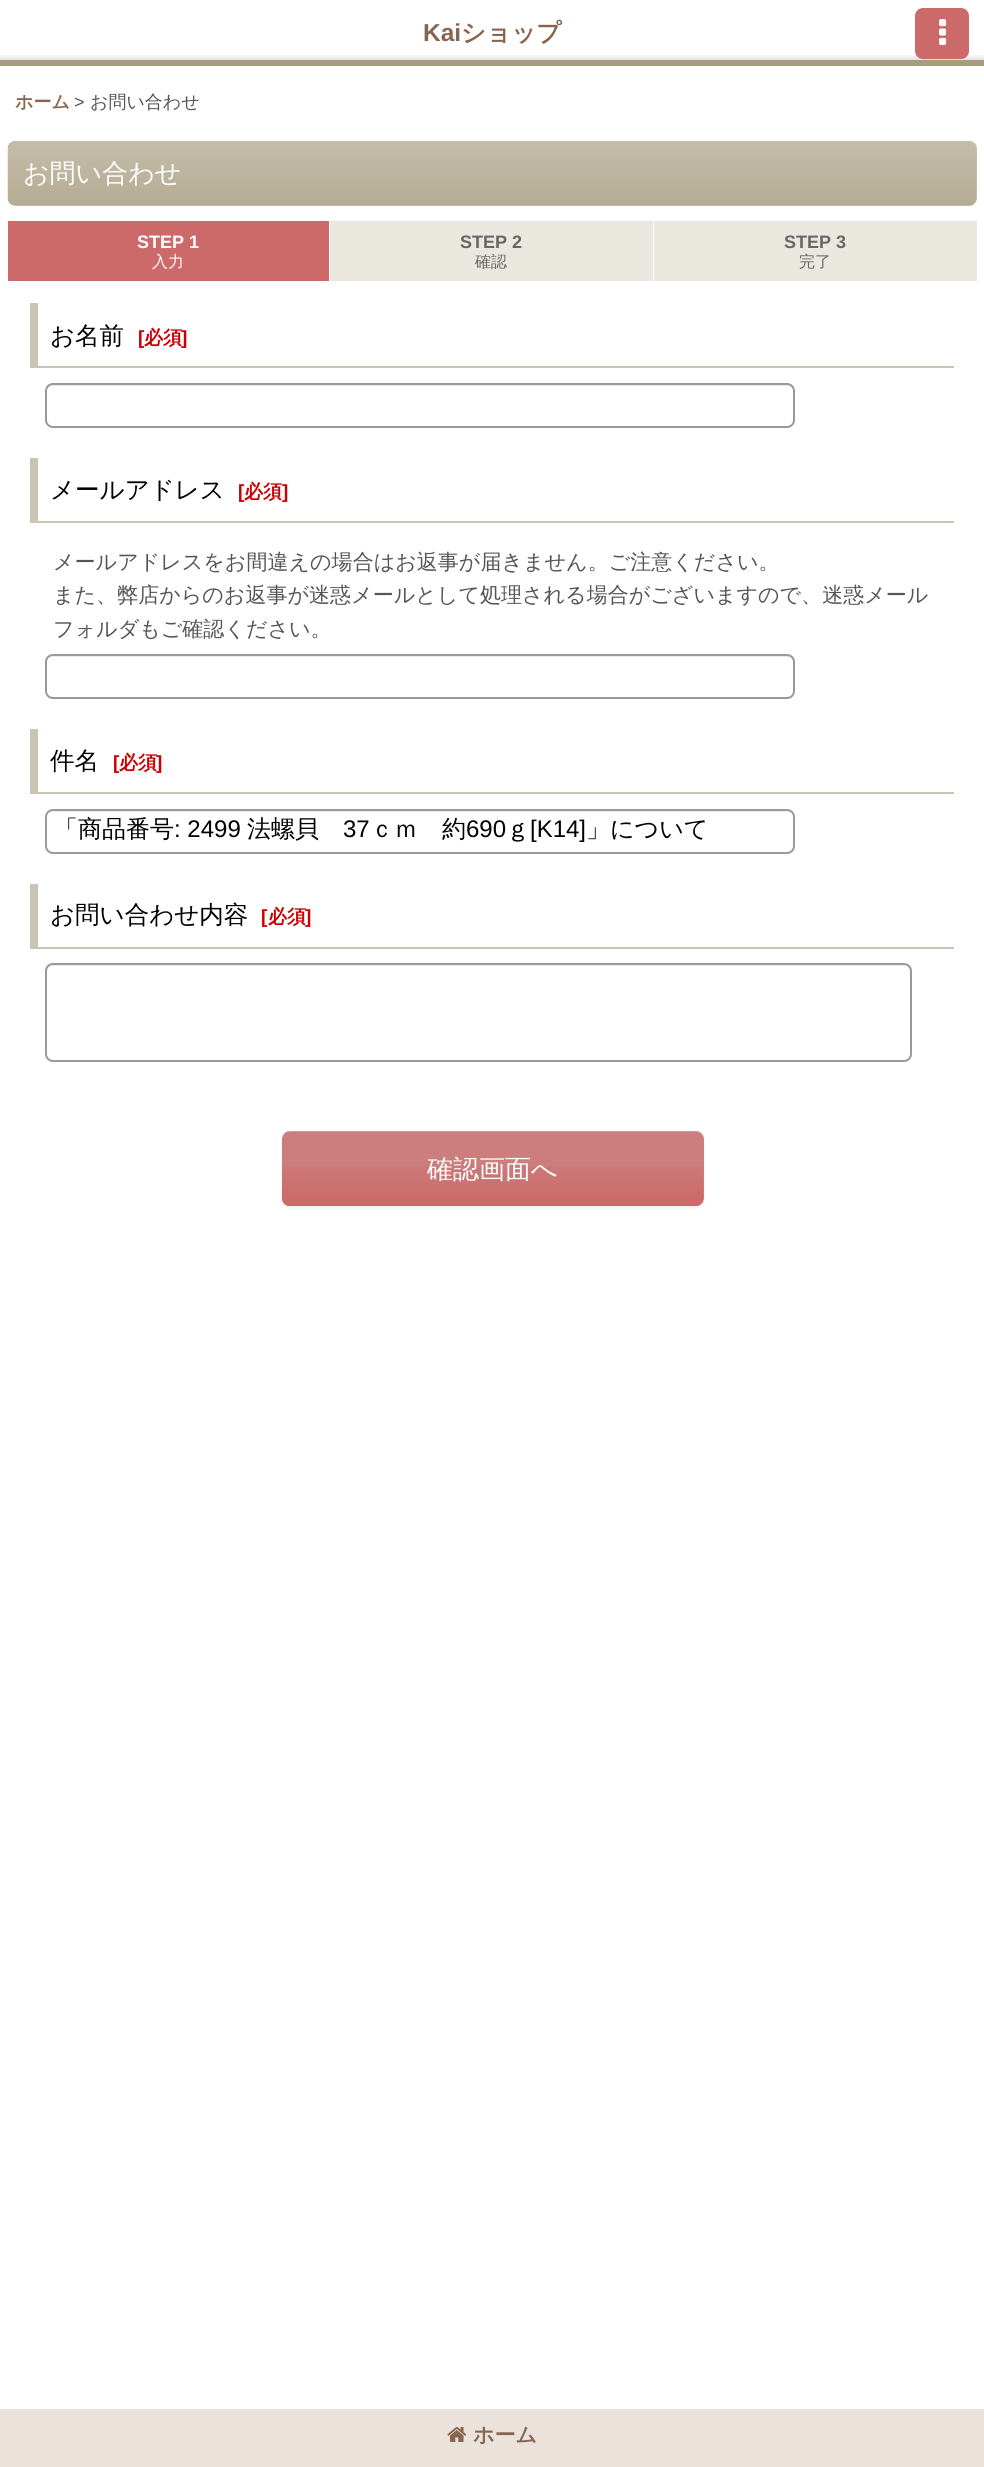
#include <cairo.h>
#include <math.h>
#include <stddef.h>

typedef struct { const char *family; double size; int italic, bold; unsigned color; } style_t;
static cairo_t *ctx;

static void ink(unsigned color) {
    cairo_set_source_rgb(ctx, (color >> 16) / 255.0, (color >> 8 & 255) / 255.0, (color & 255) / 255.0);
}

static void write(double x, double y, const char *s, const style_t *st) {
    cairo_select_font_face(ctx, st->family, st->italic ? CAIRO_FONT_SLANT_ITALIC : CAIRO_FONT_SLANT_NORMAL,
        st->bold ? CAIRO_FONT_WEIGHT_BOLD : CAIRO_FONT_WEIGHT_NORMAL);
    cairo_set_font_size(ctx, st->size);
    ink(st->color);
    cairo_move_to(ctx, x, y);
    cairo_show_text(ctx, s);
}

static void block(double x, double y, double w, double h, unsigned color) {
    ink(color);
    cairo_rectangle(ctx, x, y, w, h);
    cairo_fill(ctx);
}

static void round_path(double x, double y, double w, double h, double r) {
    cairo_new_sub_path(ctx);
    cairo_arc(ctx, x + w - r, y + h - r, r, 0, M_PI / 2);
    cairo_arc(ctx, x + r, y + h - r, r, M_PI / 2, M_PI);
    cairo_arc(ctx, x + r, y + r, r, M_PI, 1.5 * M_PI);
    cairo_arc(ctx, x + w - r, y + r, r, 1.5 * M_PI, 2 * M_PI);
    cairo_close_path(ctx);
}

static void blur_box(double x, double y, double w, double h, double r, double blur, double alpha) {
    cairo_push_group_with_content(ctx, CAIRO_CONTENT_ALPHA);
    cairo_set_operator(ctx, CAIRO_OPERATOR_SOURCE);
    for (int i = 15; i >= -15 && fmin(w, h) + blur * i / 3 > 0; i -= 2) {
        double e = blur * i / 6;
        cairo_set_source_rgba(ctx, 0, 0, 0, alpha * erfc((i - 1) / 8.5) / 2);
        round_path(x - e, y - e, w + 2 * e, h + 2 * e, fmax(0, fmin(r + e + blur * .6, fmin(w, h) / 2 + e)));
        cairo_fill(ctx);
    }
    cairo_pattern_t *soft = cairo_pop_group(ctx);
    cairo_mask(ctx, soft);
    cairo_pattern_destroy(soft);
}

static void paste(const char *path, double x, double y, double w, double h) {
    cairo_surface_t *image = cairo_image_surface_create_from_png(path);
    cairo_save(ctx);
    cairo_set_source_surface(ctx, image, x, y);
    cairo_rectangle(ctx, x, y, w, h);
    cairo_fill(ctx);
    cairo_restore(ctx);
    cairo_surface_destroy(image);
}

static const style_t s1 = {"Liberation Sans", 24.5, 0, 1, 0x87654e};
static const style_t s2 = {"WenQuanYi Zen Hei", 24.5, 0, 1, 0x87654e};
static const style_t s3 = {"WenQuanYi Zen Hei", 18, 0, 1, 0x87654e};
static const style_t s4 = {"Liberation Sans", 18, 0, 0, 0x555555};
static const style_t s5 = {"WenQuanYi Zen Hei Medium", 18, 0, 0, 0x555555};
static const style_t s6 = {"WenQuanYi Zen Hei Medium", 26, 0, 0, 0xffffff};
static const style_t s7 = {"Liberation Sans", 18, 0, 1, 0xffffff};
static const style_t s8 = {"WenQuanYi Zen Hei Medium", 16, 0, 0, 0xffffff};
static const style_t s9 = {"Liberation Sans", 18, 0, 1, 0x666666};
static const style_t s10 = {"WenQuanYi Zen Hei Medium", 16, 0, 0, 0x666666};
static const style_t s11 = {"WenQuanYi Zen Hei Medium", 24.5, 0, 0, 0x000000};
static const style_t s12 = {"Liberation Sans", 19, 0, 1, 0xcc0000};
static const style_t s13 = {"WenQuanYi Zen Hei", 19, 0, 1, 0xcc0000};
static const style_t s14 = {"WenQuanYi Zen Hei Medium", 21.05, 0, 0, 0x555555};
static const style_t s15 = {"WenQuanYi Zen Hei Medium", 24, 0, 0, 0x000000};
static const style_t s16 = {"Liberation Sans", 24, 0, 0, 0x000000};
static const style_t s17 = {"WenQuanYi Zen Hei", 21.05, 0, 1, 0x87654e};

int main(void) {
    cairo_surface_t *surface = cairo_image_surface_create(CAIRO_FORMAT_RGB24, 984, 2467);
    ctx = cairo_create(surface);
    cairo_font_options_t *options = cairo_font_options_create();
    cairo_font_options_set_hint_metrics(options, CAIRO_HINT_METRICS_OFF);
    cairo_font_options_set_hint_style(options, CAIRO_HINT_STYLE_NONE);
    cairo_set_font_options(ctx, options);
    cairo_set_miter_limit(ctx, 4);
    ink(0xffffff);
    cairo_paint(ctx);
    paste("pic1.png", 0, 55, 984, 11);
    write(423, 41, "Kai", &s1);
    write(461, 41, "ショップ", &s2);
    ink(0xcc6969);
    round_path(915, 8, 54, 51, 8);
    cairo_fill(ctx);
    paste("pic2.png", 939, 19, 8, 26);
    write(15, 108, "ホーム", &s3);
    write(74, 108, ">", &s4);
    write(90, 108, "お問い合わせ", &s5);
    ink(0xc6bfac);
    round_path(8, 141, 969, 65, 8);
    cairo_fill(ctx);
    paste("pic3.png", 7, 141, 970, 65);
    write(23, 182, "お問い合わせ", &s6);
    block(8, 221, 321, 60, 0xcc6a6a);
    write(137, 248, "STEP 1", &s7);
    write(152, 267, "入力", &s8);
    block(330, 221, 323, 60, 0xeae7df);
    write(460, 248, "STEP 2", &s9);
    write(475, 267, "確認", &s10);
    block(654, 221, 323, 60, 0xeae7df);
    write(784, 248, "STEP 3", &s9);
    write(799, 267, "完了", &s10);
    block(30, 366, 924, 2, 0xcac5b3);
    block(30, 303, 8, 65, 0xcac5b3);
    write(50, 344, "お名前", &s11);
    write(138, 344, "[", &s12);
    write(144, 344, "必須", &s13);
    write(181, 344, "]", &s12);
    ink(0xececec);
    cairo_new_path(ctx);
    cairo_move_to(ctx, 52, 386);
    cairo_line_to(ctx, 788, 386);
    cairo_curve_to(ctx, 791, 386, 794, 388, 794, 392);
    cairo_line_to(ctx, 794, 390);
    cairo_curve_to(ctx, 794, 387, 791, 384, 788, 384);
    cairo_line_to(ctx, 53, 384);
    cairo_curve_to(ctx, 50, 384, 48, 386, 47, 388);
    cairo_curve_to(ctx, 48, 387, 50, 386, 52, 386);
    cairo_close_path(ctx);
    cairo_fill(ctx);
    round_path(46, 384, 748, 43, 7);
    ink(0x999999);
    cairo_stroke(ctx);
    block(30, 521, 924, 2, 0xcac5b3);
    block(30, 458, 8, 64, 0xcac5b3);
    write(50, 498, "メールアドレス", &s11);
    write(238, 498, "[", &s12);
    write(244, 498, "必須", &s13);
    write(282, 498, "]", &s12);
    write(53, 569, "メールアドレスをお間違えの場合はお返事が届きません。ご注意ください。", &s14);
    write(53, 602, "また、弊店からのお返事が迷惑メールとして処理される場合がございますので、迷惑メール", &s14);
    write(53, 636, "フォルダもご確認ください。", &s14);
    ink(0xececec);
    cairo_new_path(ctx);
    cairo_move_to(ctx, 52, 657);
    cairo_line_to(ctx, 788, 657);
    cairo_curve_to(ctx, 791, 657, 794, 660, 794, 663);
    cairo_line_to(ctx, 794, 662);
    cairo_curve_to(ctx, 794, 659, 791, 656, 788, 656);
    cairo_line_to(ctx, 53, 656);
    cairo_curve_to(ctx, 51, 656, 49, 657, 48, 659);
    cairo_curve_to(ctx, 49, 658, 51, 657, 52, 657);
    cairo_close_path(ctx);
    cairo_fill(ctx);
    round_path(46, 655, 748, 43, 7);
    ink(0x999999);
    cairo_stroke(ctx);
    block(30, 792, 924, 2, 0xcac5b3);
    block(30, 729, 8, 65, 0xcac5b3);
    write(50, 769, "件名", &s11);
    write(113, 769, "[", &s12);
    write(119, 769, "必須", &s13);
    write(156, 769, "]", &s12);
    ink(0xececec);
    cairo_new_path(ctx);
    cairo_move_to(ctx, 52, 812);
    cairo_line_to(ctx, 788, 812);
    cairo_curve_to(ctx, 791, 812, 794, 814, 794, 818);
    cairo_line_to(ctx, 794, 816);
    cairo_curve_to(ctx, 794, 813, 791, 810, 788, 810);
    cairo_line_to(ctx, 53, 810);
    cairo_curve_to(ctx, 50, 810, 48, 812, 47, 814);
    cairo_curve_to(ctx, 48, 813, 50, 812, 52, 812);
    cairo_close_path(ctx);
    cairo_fill(ctx);
    round_path(46, 810, 748, 43, 7);
    ink(0x999999);
    cairo_stroke(ctx);
    write(54, 837, "「商品番号", &s15);
    write(174, 837, ": 2499", &s16);
    write(247, 837, "法螺貝", &s15);
    write(343, 837, "37", &s16);
    write(370, 837, "ｃｍ　約", &s15);
    write(466, 837, "690", &s16);
    write(506, 837, "ｇ", &s15);
    write(530, 837, "[K14]", &s16);
    write(586, 837, "」について", &s15);
    block(30, 947, 924, 2, 0xcac5b3);
    block(30, 884, 8, 64, 0xcac5b3);
    write(50, 923, "お問い合わせ内容", &s11);
    write(261, 923, "[", &s12);
    write(268, 923, "必須", &s13);
    write(305, 923, "]", &s12);
    ink(0xececec);
    cairo_new_path(ctx);
    cairo_move_to(ctx, 52, 966);
    cairo_line_to(ctx, 904, 966);
    cairo_curve_to(ctx, 908, 966, 910, 969, 910, 972);
    cairo_line_to(ctx, 910, 1056);
    cairo_curve_to(ctx, 910, 1057, 910, 1058, 909, 1059);
    cairo_curve_to(ctx, 910, 1058, 911, 1057, 911, 1055);
    cairo_line_to(ctx, 911, 971);
    cairo_curve_to(ctx, 911, 968, 908, 965, 905, 965);
    cairo_line_to(ctx, 53, 965);
    cairo_curve_to(ctx, 51, 965, 49, 966, 48, 968);
    cairo_curve_to(ctx, 49, 967, 51, 966, 52, 966);
    cairo_close_path(ctx);
    cairo_fill(ctx);
    round_path(46, 964, 865, 97, 7);
    ink(0x999999);
    cairo_stroke(ctx);
    ink(0x000000);
    blur_box(282, 1133, 422, 75, 8, 1.5, 0.05);
    ink(0xcc7e7e);
    round_path(282, 1131, 422, 75, 8);
    cairo_fill(ctx);
    paste("pic4.png", 282, 1166, 422, 40);
    cairo_set_source_rgba(ctx, 1, 1, 1, 0.2);
    cairo_new_path(ctx);
    cairo_move_to(ctx, 290, 1132);
    cairo_line_to(ctx, 696, 1132);
    cairo_curve_to(ctx, 700, 1132, 704, 1136, 704, 1140);
    cairo_line_to(ctx, 704, 1139);
    cairo_curve_to(ctx, 704, 1135, 700, 1131, 696, 1131);
    cairo_line_to(ctx, 290, 1131);
    cairo_curve_to(ctx, 286, 1131, 282, 1135, 282, 1139);
    cairo_line_to(ctx, 282, 1140);
    cairo_curve_to(ctx, 282, 1136, 285, 1132, 290, 1132);
    cairo_close_path(ctx);
    cairo_fill(ctx);
    write(427, 1178, "確認画面へ", &s6);
    block(0, 2409, 984, 58, 0xebe2dc);
    paste("pic5.png", 447, 2426, 20, 16);
    write(473, 2442, "ホーム", &s17);
    cairo_surface_write_to_png(surface, "screenshot.png");
    cairo_font_options_destroy(options);
    cairo_destroy(ctx);
    cairo_surface_destroy(surface);
    return 0;
}
